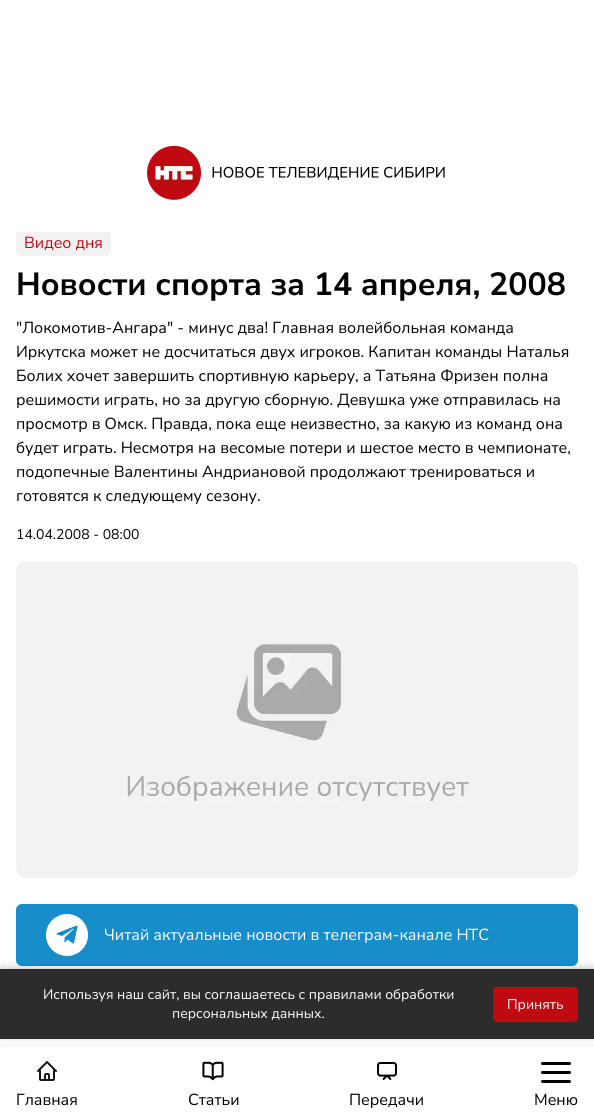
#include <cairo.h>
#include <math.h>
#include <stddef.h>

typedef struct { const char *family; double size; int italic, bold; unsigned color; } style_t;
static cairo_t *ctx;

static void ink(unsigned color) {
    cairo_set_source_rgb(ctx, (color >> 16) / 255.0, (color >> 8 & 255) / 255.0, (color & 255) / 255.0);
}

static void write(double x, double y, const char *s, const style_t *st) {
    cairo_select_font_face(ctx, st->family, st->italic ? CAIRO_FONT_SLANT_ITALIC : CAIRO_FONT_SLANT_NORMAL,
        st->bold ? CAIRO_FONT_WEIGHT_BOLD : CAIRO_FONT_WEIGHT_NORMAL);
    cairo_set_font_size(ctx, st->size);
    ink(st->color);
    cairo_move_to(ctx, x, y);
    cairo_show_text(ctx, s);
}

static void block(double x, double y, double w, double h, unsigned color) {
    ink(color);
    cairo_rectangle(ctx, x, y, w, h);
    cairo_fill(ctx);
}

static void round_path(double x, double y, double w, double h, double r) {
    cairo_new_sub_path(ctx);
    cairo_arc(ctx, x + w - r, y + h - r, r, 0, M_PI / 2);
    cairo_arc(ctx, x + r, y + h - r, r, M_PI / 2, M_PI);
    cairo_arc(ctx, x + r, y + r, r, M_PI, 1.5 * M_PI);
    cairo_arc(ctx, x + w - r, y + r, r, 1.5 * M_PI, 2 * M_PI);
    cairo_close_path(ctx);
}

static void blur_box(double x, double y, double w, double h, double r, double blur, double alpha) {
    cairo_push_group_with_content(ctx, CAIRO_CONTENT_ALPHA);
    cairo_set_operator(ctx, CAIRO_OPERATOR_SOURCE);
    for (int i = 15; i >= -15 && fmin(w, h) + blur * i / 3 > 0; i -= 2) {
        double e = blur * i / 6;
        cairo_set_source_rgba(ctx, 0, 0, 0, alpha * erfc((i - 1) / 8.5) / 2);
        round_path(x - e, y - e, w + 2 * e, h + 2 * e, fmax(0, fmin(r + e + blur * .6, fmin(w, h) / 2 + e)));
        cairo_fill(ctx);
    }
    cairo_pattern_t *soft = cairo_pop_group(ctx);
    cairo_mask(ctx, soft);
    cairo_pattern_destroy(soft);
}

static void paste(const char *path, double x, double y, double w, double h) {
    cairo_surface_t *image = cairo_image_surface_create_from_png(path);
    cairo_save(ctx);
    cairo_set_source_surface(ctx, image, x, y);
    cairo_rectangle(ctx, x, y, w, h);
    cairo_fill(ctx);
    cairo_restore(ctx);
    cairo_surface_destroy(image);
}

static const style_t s1 = {"Nunito Sans", 16, 0, 0, 0xbf0a12};
static const style_t s2 = {"Nunito Sans", 32, 0, 1, 0x000000};
static const style_t s3 = {"Nunito Sans", 16, 0, 0, 0x000000};
static const style_t s4 = {"Nunito Sans", 14, 0, 0, 0x000000};
static const style_t s5 = {"Nunito Sans", 16, 0, 0, 0xffffff};
static const style_t s6 = {"Nunito Sans", 14, 0, 0, 0xffffff};

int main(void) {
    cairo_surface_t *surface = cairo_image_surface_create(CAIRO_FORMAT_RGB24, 594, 1119);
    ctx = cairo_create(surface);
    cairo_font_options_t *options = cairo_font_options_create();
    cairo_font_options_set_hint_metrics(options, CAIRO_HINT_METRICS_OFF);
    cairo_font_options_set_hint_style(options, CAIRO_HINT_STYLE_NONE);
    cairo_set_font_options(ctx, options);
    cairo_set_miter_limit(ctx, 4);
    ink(0xffffff);
    cairo_paint(ctx);
    ink(0xf3f2f3);
    round_path(16, 230, 95, 26, 5);
    cairo_fill(ctx);
    write(24, 248, "Видео дня", &s1);
    write(16, 295, "Новости спорта за 14 апреля, 2008", &s2);
    write(16, 333, "\"Локомотив-Ангара\" - минус два! Главная волейбольная команда", &s3);
    write(16, 357, "Иркутска может не досчитаться двух игроков. Капитан команды Наталья", &s3);
    write(16, 381, "Болих хочет завершить спортивную карьеру, а Татьяна Фризен полна", &s3);
    write(16, 405, "решимости играть, но за другую сборную. Девушка уже отправилась на", &s3);
    write(16, 429, "просмотр в Омск. Правда, пока еще неизвестно, за какую из команд она", &s3);
    write(16, 453, "будет играть. Несмотря на весомые потери и шестое место в чемпионате,", &s3);
    write(16, 477, "подопечные Валентины Андриановой продолжают тренироваться и", &s3);
    write(16, 501, "готовятся к следующему сезону.", &s3);
    write(16, 539, "14.04.2008 - 08:00", &s4);
    paste("pic1.png", 16, 561, 562, 317);
    ink(0x178ec9);
    round_path(16, 904, 562, 62, 6);
    cairo_fill(ctx);
    ink(0xffffff);
    cairo_arc(ctx, 67, 935, 21, 0, 2 * M_PI);
    cairo_fill(ctx);
    paste("pic2.png", 56, 925, 22, 19);
    write(104, 940, "Читай актуальные новости в телеграм-канале НТС", &s5);
    ink(0x000000);
    blur_box(0, 967, 594, 70, 0, 4, 0.2);
    block(0, 969, 594, 70, 0x2c2c2c);
    write(43, 999, "Используя наш сайт, вы соглашаетесь с правилами обработки", &s6);
    write(172, 1018, "персональных данных.", &s6);
    ink(0xbf0a12);
    round_path(493, 987, 85, 35, 4);
    cairo_fill(ctx);
    write(507, 1009, "Принять", &s6);
    block(17, 230, 93, 2, 0xffffff);
    paste("pic3.png", 147, 146, 298, 54);
    ink(0x000000);
    blur_box(0, 1045, 594, 72, 0, 2, 0.04);
    block(0, 1047, 594, 71, 0xffffff);
    paste("pic4.png", 37, 1061, 20, 20);
    write(16, 1105, "Главная", &s3);
    paste("pic5.png", 202, 1061, 22, 20);
    write(188, 1105, "Статьи", &s3);
    paste("pic6.png", 377, 1062, 20, 18);
    write(349, 1105, "Передачи", &s3);
    round_path(541, 1071, 30, 3, 1.5);
    cairo_fill(ctx);
    round_path(541, 1062, 30, 3, 1.5);
    cairo_fill(ctx);
    round_path(541, 1080, 30, 3, 1.5);
    cairo_fill(ctx);
    write(534, 1105, "Меню", &s3);
    cairo_surface_write_to_png(surface, "screenshot.png");
    cairo_font_options_destroy(options);
    cairo_destroy(ctx);
    cairo_surface_destroy(surface);
    return 0;
}
